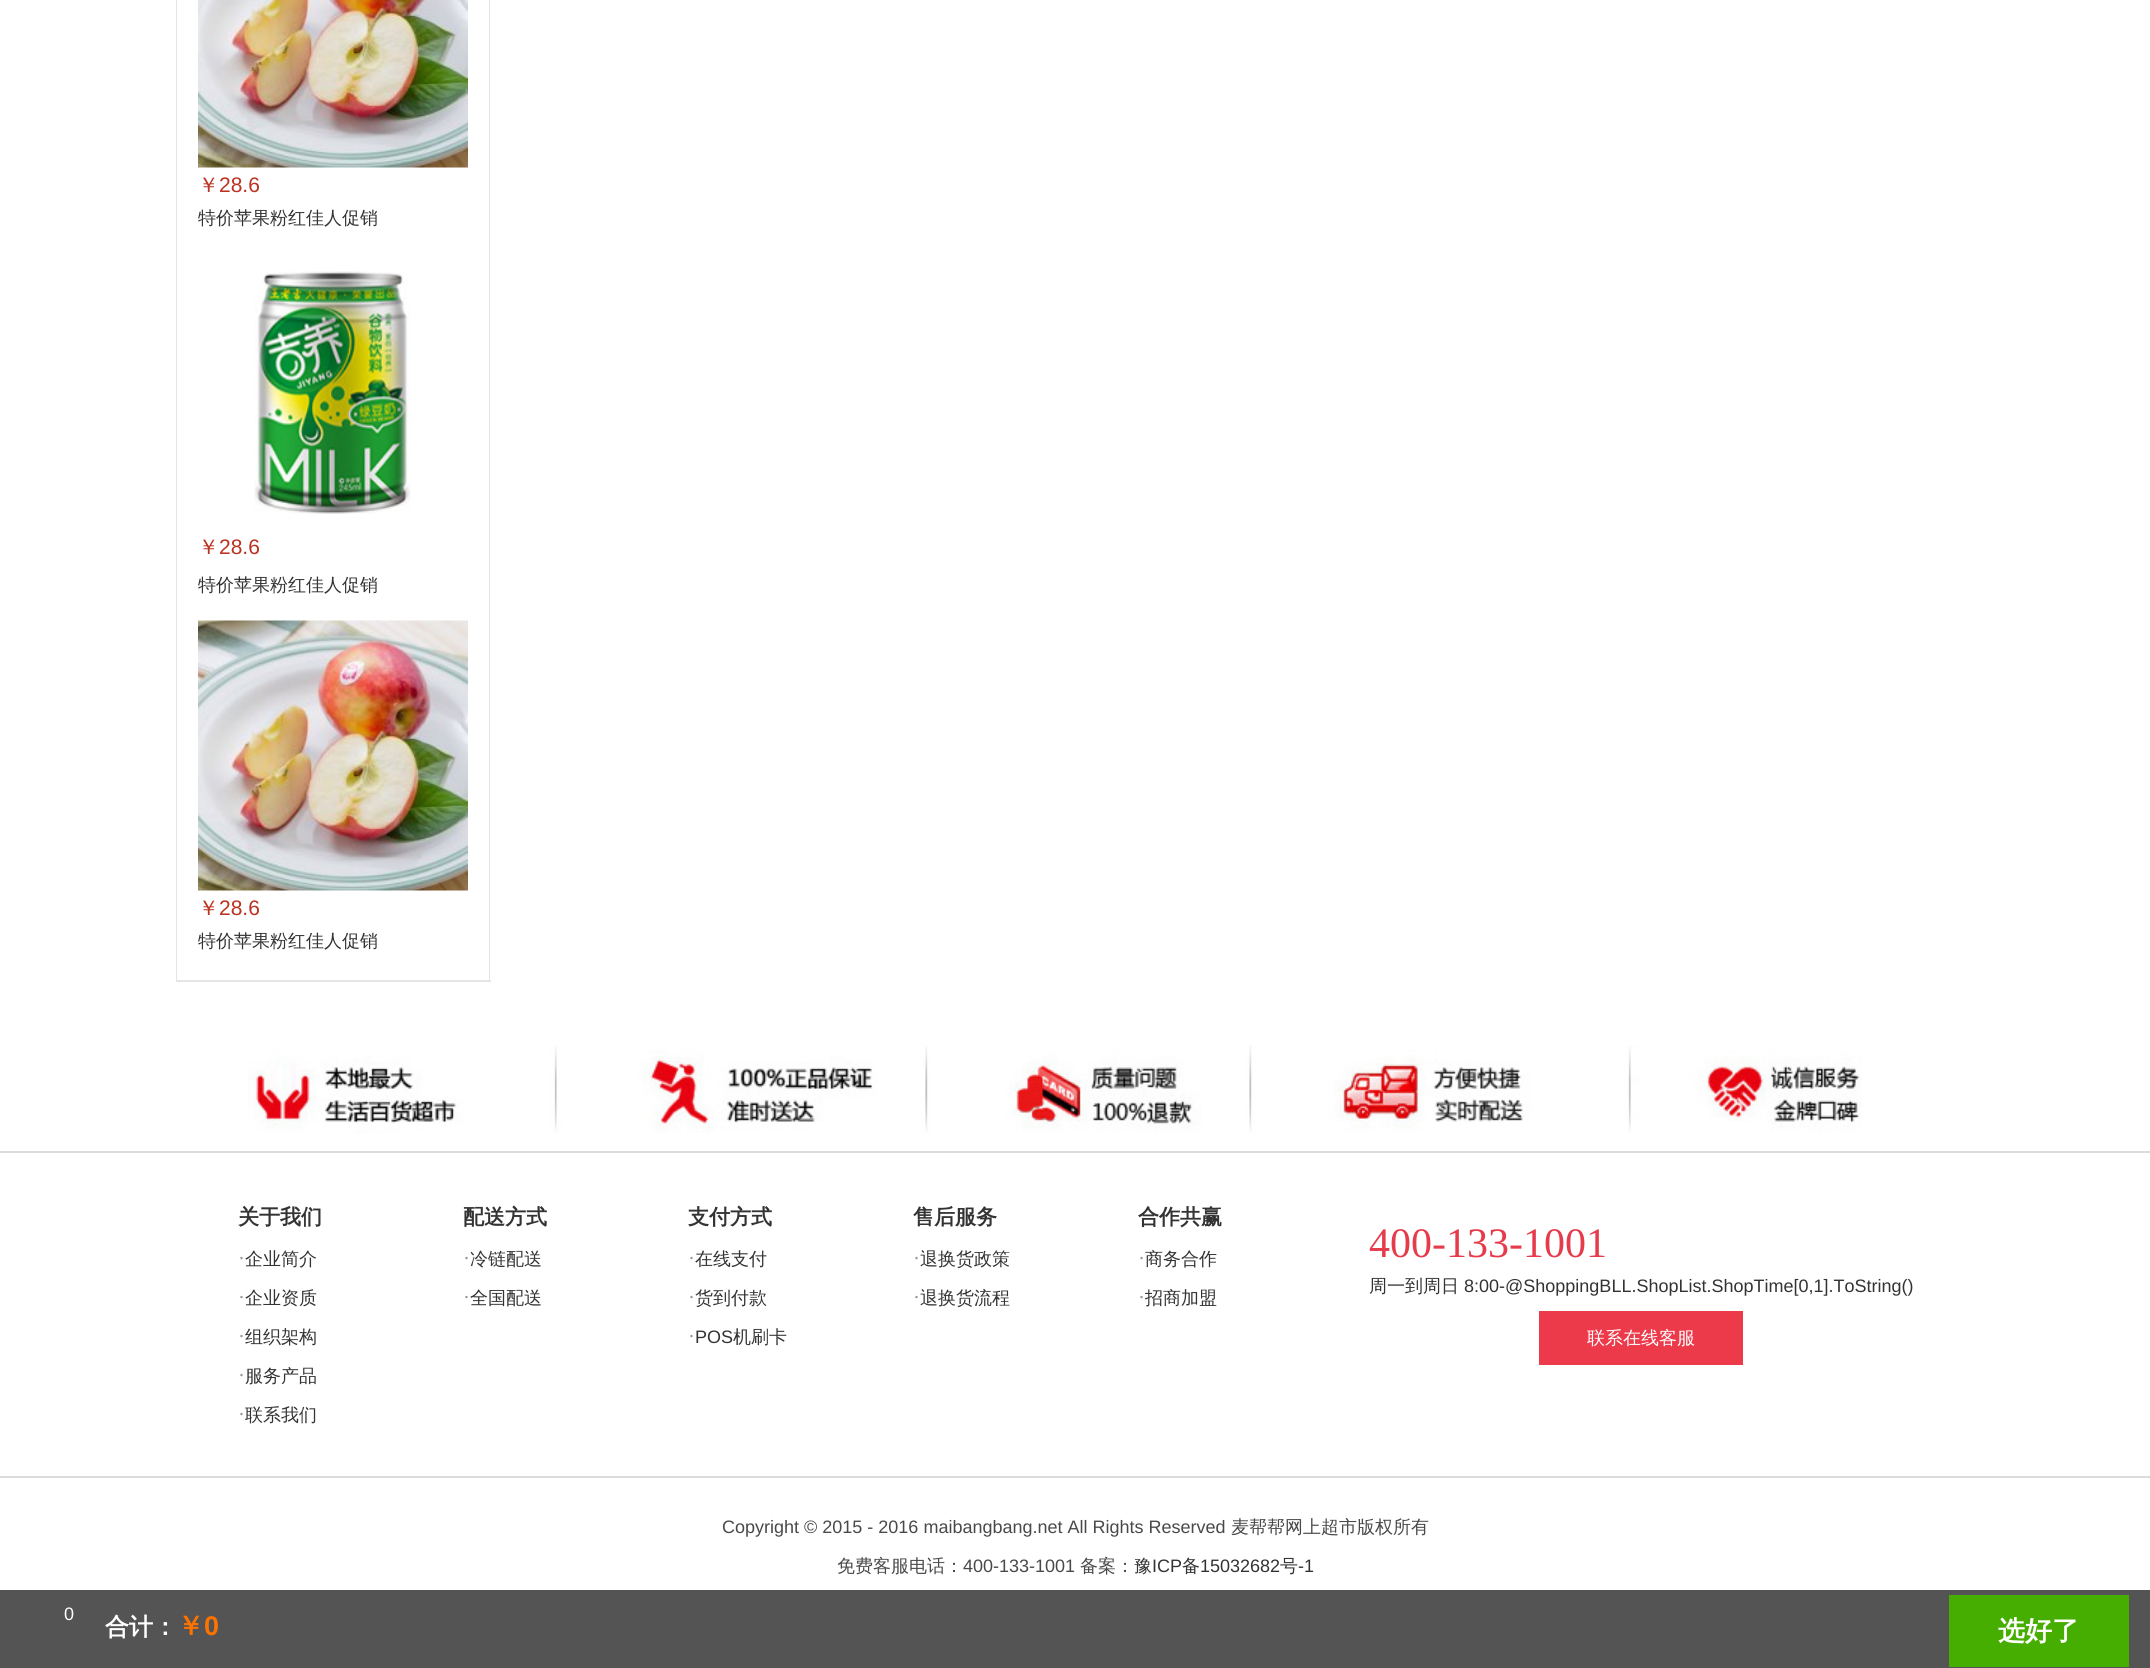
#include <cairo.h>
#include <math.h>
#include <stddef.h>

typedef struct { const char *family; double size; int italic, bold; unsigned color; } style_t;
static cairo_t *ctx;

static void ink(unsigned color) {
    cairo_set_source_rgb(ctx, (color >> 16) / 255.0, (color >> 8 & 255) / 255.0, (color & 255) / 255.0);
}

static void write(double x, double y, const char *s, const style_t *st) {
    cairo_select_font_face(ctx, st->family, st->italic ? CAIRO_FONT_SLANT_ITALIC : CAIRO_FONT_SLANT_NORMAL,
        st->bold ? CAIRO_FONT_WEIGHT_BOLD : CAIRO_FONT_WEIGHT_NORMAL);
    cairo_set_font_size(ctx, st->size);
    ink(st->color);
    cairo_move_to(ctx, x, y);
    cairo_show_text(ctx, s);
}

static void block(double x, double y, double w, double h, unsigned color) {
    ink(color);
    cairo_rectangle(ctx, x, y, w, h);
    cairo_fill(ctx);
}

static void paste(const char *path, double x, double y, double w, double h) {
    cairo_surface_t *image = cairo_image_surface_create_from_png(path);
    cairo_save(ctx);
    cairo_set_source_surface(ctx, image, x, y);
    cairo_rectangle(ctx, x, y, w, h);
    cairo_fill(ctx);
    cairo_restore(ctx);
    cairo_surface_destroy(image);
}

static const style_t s1 = {"WenQuanYi Zen Hei Medium", 21, 0, 0, 0xbb3221};
static const style_t s2 = {"Liberation Sans", 21, 0, 0, 0xbb3221};
static const style_t s3 = {"WenQuanYi Zen Hei Medium", 18, 0, 0, 0x333333};
static const style_t s4 = {"WenQuanYi Zen Hei", 21, 0, 1, 0x333333};
static const style_t s5 = {"Liberation Serif", 21, 0, 0, 0x989898};
static const style_t s6 = {"Liberation Sans", 18, 0, 0, 0x333333};
static const style_t s7 = {"Liberation Serif", 42, 0, 0, 0xe63b4b};
static const style_t s8 = {"WenQuanYi Zen Hei Medium", 18, 0, 0, 0xffffff};
static const style_t s9 = {"Liberation Sans", 18, 0, 0, 0x494949};
static const style_t s10 = {"WenQuanYi Zen Hei Medium", 18, 0, 0, 0x494949};
static const style_t s11 = {"Liberation Sans", 18, 0, 0, 0xffffff};
static const style_t s12 = {"WenQuanYi Zen Hei", 24, 0, 1, 0xffffff};
static const style_t s13 = {"WenQuanYi Zen Hei", 27, 0, 1, 0xfe7200};
static const style_t s14 = {"Liberation Sans", 27, 0, 1, 0xfe7200};
static const style_t s15 = {"WenQuanYi Zen Hei", 27, 0, 1, 0xffffff};

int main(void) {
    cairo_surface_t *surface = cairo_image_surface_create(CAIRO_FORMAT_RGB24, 2150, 1668);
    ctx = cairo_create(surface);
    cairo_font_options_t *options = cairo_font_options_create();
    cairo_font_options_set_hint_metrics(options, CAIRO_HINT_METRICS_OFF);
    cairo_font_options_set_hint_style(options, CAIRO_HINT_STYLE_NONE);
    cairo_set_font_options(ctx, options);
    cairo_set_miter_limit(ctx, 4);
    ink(0xffffff);
    cairo_paint(ctx);
    ink(0xe5e5e5);
    cairo_new_path(ctx);
    cairo_move_to(ctx, 490, -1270);
    cairo_line_to(ctx, 490, 981);
    cairo_line_to(ctx, 489, 980);
    cairo_line_to(ctx, 489, -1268);
    cairo_close_path(ctx);
    cairo_fill(ctx);
    block(176, 980, 315, 2, 0xe5e5e5);
    cairo_new_path(ctx);
    cairo_move_to(ctx, 176, 981);
    cairo_line_to(ctx, 176, -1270);
    cairo_line_to(ctx, 177, -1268);
    cairo_line_to(ctx, 177, 980);
    cairo_close_path(ctx);
    cairo_fill(ctx);
    paste("pic1.png", 198, 0, 270, 168);
    write(198, 192, "￥", &s1);
    write(219, 192, "28.6", &s2);
    write(198, 224, "特价苹果粉红佳人促销", &s3);
    paste("pic2.png", 254, 271, 157, 243);
    write(198, 554, "￥", &s1);
    write(219, 554, "28.6", &s2);
    write(198, 591, "特价苹果粉红佳人促销", &s3);
    paste("pic3.png", 198, 620, 270, 271);
    write(198, 915, "￥", &s1);
    write(219, 915, "28.6", &s2);
    write(198, 947, "特价苹果粉红佳人促销", &s3);
    paste("pic4.png", 247, 1045, 1615, 88);
    block(0, 1151, 2150, 2, 0xdcdcdc);
    block(0, 1476, 2150, 2, 0xdcdcdc);
    write(238, 1224, "关于我们", &s4);
    write(238, 1265, "·", &s5);
    write(245, 1265, "企业简介", &s3);
    write(238, 1304, "·", &s5);
    write(245, 1304, "企业资质", &s3);
    write(238, 1343, "·", &s5);
    write(245, 1343, "组织架构", &s3);
    write(238, 1382, "·", &s5);
    write(245, 1382, "服务产品", &s3);
    write(238, 1421, "·", &s5);
    write(245, 1421, "联系我们", &s3);
    write(463, 1224, "配送方式", &s4);
    write(463, 1265, "·", &s5);
    write(470, 1265, "冷链配送", &s3);
    write(463, 1304, "·", &s5);
    write(470, 1304, "全国配送", &s3);
    write(688, 1224, "支付方式", &s4);
    write(688, 1265, "·", &s5);
    write(695, 1265, "在线支付", &s3);
    write(688, 1304, "·", &s5);
    write(695, 1304, "货到付款", &s3);
    write(688, 1343, "·", &s5);
    write(695, 1343, "POS", &s6);
    write(733, 1343, "机刷卡", &s3);
    write(913, 1224, "售后服务", &s4);
    write(913, 1265, "·", &s5);
    write(920, 1265, "退换货政策", &s3);
    write(913, 1304, "·", &s5);
    write(920, 1304, "退换货流程", &s3);
    write(1138, 1224, "合作共赢", &s4);
    write(1138, 1265, "·", &s5);
    write(1145, 1265, "商务合作", &s3);
    write(1138, 1304, "·", &s5);
    write(1145, 1304, "招商加盟", &s3);
    write(1369, 1257, "400-133-1001", &s7);
    write(1369, 1292, "周一到周日", &s3);
    write(1464, 1292, "8:00-@ShoppingBLL.ShopList.ShopTime[0,1].ToString()", &s6);
    block(1539, 1311, 204, 54, 0xec3a4a);
    write(1587, 1344, "联系在线客服", &s8);
    write(722, 1533, "Copyright © 2015 - 2016 maibangbang.net All Rights Reserved", &s9);
    write(1231, 1533, "麦帮帮网上超市版权所有", &s10);
    write(837, 1572, "免费客服电话：", &s10);
    write(963, 1572, "400-133-1001", &s9);
    write(1080, 1572, "备案：", &s10);
    write(1134, 1572, "豫", &s3);
    write(1152, 1572, "ICP", &s6);
    write(1182, 1572, "备", &s3);
    write(1200, 1572, "15032682", &s6);
    write(1280, 1572, "号", &s3);
    write(1298, 1572, "-1", &s6);
    block(0, 1590, 2150, 78, 0x545454);
    write(64, 1620, "0", &s11);
    write(105, 1635, "合计：", &s12);
    write(177, 1635, "￥", &s13);
    write(204, 1635, "0", &s14);
    block(1949, 1595, 180, 72, 0x46ae00);
    write(1998, 1640, "选好了", &s15);
    cairo_surface_write_to_png(surface, "screenshot.png");
    cairo_font_options_destroy(options);
    cairo_destroy(ctx);
    cairo_surface_destroy(surface);
    return 0;
}
